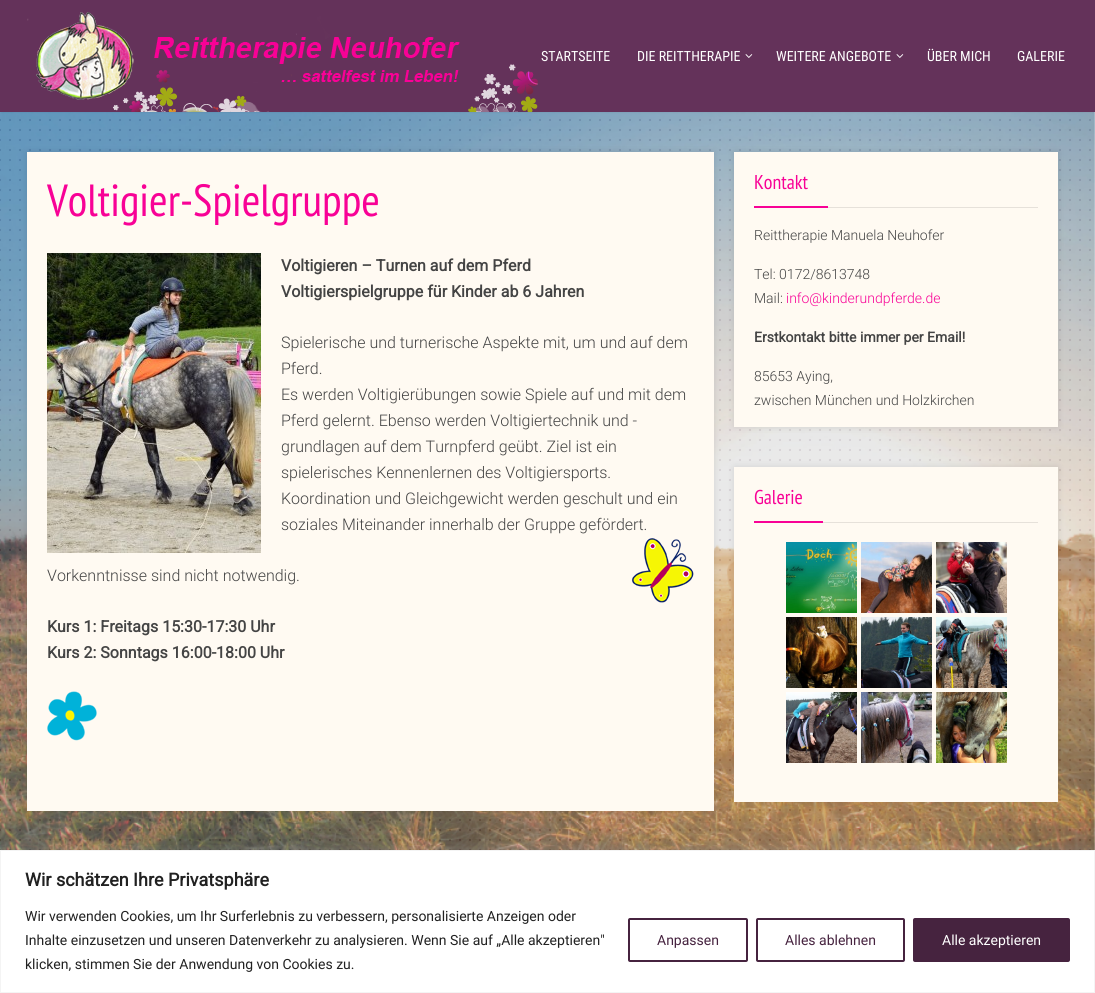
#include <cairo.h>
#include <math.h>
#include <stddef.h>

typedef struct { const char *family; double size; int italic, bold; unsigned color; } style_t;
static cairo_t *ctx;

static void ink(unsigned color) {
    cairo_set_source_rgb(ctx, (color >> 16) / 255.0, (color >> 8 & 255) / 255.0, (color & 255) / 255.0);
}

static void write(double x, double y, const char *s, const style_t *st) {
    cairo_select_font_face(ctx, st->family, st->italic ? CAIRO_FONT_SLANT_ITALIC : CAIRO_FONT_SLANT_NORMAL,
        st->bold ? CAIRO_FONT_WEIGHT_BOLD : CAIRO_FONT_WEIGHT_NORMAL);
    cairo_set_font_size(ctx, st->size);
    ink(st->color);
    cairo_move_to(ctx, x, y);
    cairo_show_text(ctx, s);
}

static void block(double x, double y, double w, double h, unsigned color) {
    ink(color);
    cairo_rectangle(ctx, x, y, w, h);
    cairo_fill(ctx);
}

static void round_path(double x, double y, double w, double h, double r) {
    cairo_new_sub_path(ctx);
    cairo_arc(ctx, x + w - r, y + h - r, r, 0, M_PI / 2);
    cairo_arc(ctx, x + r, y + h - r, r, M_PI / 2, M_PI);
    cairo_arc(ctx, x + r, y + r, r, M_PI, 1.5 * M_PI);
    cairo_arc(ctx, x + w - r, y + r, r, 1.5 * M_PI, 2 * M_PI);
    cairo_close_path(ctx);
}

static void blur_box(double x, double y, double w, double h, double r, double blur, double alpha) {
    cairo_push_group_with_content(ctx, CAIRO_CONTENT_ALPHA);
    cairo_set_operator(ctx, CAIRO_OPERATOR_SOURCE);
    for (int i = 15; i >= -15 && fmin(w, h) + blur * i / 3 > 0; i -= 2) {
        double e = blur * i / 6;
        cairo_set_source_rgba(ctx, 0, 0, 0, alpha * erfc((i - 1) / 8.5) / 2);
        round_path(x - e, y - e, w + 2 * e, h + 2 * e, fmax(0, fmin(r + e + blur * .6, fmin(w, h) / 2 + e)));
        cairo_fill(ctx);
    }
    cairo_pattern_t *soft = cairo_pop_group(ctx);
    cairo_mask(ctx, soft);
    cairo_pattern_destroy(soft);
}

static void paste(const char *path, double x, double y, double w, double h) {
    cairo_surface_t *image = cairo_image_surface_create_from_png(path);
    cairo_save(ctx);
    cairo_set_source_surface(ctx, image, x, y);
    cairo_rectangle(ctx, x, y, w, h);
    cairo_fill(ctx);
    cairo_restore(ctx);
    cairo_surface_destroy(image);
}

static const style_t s1 = {"Roboto Condensed", 14, 0, 0, 0xffffff};
static const style_t s2 = {"PT Sans Narrow", 45, 0, 0, 0xf80196};
static const style_t s3 = {"Roboto", 16, 0, 1, 0x444444};
static const style_t s4 = {"Roboto Light", 16, 0, 0, 0x444444};
static const style_t s5 = {"PT Sans Narrow", 20, 0, 0, 0xf80196};
static const style_t s6 = {"Roboto Light", 14, 0, 0, 0x444444};
static const style_t s7 = {"Roboto Light", 14, 0, 0, 0xf80196};
static const style_t s8 = {"Roboto", 14, 0, 1, 0x444444};
static const style_t s9 = {"Roboto", 18, 0, 1, 0x212121};
static const style_t s10 = {"Roboto", 14, 0, 0, 0x212121};
static const style_t s11 = {"Roboto", 14, 0, 0, 0x46233f};
static const style_t s12 = {"Roboto", 14, 0, 0, 0xffffff};

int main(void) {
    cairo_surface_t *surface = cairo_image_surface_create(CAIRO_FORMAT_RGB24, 1095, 993);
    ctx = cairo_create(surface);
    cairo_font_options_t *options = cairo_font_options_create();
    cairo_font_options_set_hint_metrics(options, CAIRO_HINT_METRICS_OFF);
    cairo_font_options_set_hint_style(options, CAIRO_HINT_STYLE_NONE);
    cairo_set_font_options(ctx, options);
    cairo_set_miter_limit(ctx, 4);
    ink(0xffffff);
    cairo_paint(ctx);
    paste("pic3.png", 0, 112, 1095, 738);
    paste("pic4.png", 0, 112, 1095, 738);
    ink(0x000000);
    blur_box(2, 4, 1091, 108, 0, 1, 0.1);
    block(0, 0, 1095, 112, 0x64325a);
    paste("pic1.png", 27, 12, 511, 100);
    write(541, 61, "STARTSEITE", &s1);
    write(637, 61, "DIE REITTHERAPIE", &s1);
    paste("pic2.png", 745, 54, 8, 4);
    write(776, 61, "WEITERE ANGEBOTE", &s1);
    paste("pic2.png", 896, 54, 8, 4);
    write(927, 61, "ÜBER MICH", &s1);
    write(1017, 61, "GALERIE", &s1);
    ink(0x000000);
    blur_box(27, 152, 687, 659, 0, 3.5, 0.1);
    block(27, 152, 687, 659, 0xfffaf2);
    write(47, 216, "Voltigier-Spielgruppe", &s2);
    paste("pic5.png", 47, 253, 214, 300);
    write(281, 271, "Voltigieren – Turnen auf dem Pferd", &s3);
    write(281, 297, "Voltigierspielgruppe für Kinder ab 6 Jahren", &s3);
    write(281, 348, "Spielerische und turnerische Aspekte mit, um und auf dem", &s4);
    write(281, 374, "Pferd.", &s4);
    write(281, 400, "Es werden Voltigierübungen sowie Spiele auf und mit dem", &s4);
    write(281, 426, "Pferd gelernt. Ebenso werden Voltigiertechnik und -", &s4);
    write(281, 452, "grundlagen auf dem Turnpferd geübt. Ziel ist ein", &s4);
    write(281, 478, "spielerisches Kennenlernen des Voltigiersports.", &s4);
    write(281, 504, "Koordination und Gleichgewicht werden geschult und ein", &s4);
    write(281, 530, "soziales Miteinander innerhalb der Gruppe gefördert.", &s4);
    paste("pic6.png", 631, 538, 63, 65);
    write(47, 581, "Vorkenntnisse sind nicht notwendig.", &s4);
    write(47, 632, "Kurs 1: Freitags 15:30-17:30 Uhr", &s3);
    write(47, 658, "Kurs 2: Sonntags 16:00-18:00 Uhr", &s3);
    paste("pic7.png", 47, 691, 50, 50);
    ink(0x000000);
    blur_box(734, 152, 324, 275, 0, 3.5, 0.1);
    block(734, 152, 324, 275, 0xfffaf2);
    block(828, 207, 210, 1, 0xe6e1da);
    block(754, 206, 74, 2, 0xf80196);
    write(754, 189, "Kontakt", &s5);
    write(754, 240, "Reittherapie Manuela Neuhofer", &s6);
    write(754, 279, "Tel: 0172/8613748", &s6);
    write(754, 303, "Mail:", &s6);
    write(786, 303, "info@kinderundpferde.de", &s7);
    write(754, 342, "Erstkontakt bitte immer per Email!", &s8);
    write(754, 381, "85653 Aying,", &s6);
    write(754, 405, "zwischen München und Holzkirchen", &s6);
    ink(0x000000);
    blur_box(734, 467, 324, 335, 0, 3.5, 0.1);
    block(734, 467, 324, 335, 0xfffaf2);
    block(823, 522, 215, 1, 0xe6e1da);
    block(754, 521, 69, 2, 0xf80196);
    write(754, 504, "Galerie", &s5);
    paste("pic8.png", 786, 542, 71, 71);
    paste("pic9.png", 861, 542, 71, 71);
    paste("pic10.png", 936, 542, 71, 71);
    paste("pic11.png", 786, 617, 71, 71);
    paste("pic12.png", 861, 617, 71, 71);
    paste("pic13.png", 936, 617, 71, 71);
    paste("pic14.png", 786, 692, 71, 71);
    paste("pic15.png", 861, 692, 71, 71);
    paste("pic16.png", 936, 692, 71, 71);
    ink(0xacabab);
    blur_box(0, 849, 1095, 143, 0, 5, 0.3);
    ink(0xffffff);
    cairo_rectangle(ctx, 0.5, 850.5, 1094, 142);
    cairo_fill_preserve(ctx);
    ink(0xf4f4f4);
    cairo_set_line_width(ctx, 1);
    cairo_stroke(ctx);
    write(25, 886, "Wir schätzen Ihre Privatsphäre", &s9);
    write(25, 921, "Wir verwenden Cookies, um Ihr Surferlebnis zu verbessern, personalisierte Anzeigen oder", &s10);
    write(25, 945, "Inhalte einzusetzen und unseren Datenverkehr zu analysieren. Wenn Sie auf „Alle akzeptieren\"", &s10);
    write(25, 969, "klicken, stimmen Sie der Anwendung von Cookies zu.", &s10);
    round_path(629, 919, 118, 42, 1);
    ink(0x46233f);
    cairo_set_line_width(ctx, 2);
    cairo_stroke(ctx);
    write(657, 945, "Anpassen", &s11);
    round_path(757, 919, 147, 42, 1);
    cairo_stroke(ctx);
    write(785, 945, "Alles ablehnen", &s11);
    round_path(914, 919, 155, 42, 1);
    cairo_fill_preserve(ctx);
    cairo_stroke(ctx);
    write(942, 945, "Alle akzeptieren", &s12);
    cairo_surface_write_to_png(surface, "screenshot.png");
    cairo_font_options_destroy(options);
    cairo_destroy(ctx);
    cairo_surface_destroy(surface);
    return 0;
}
